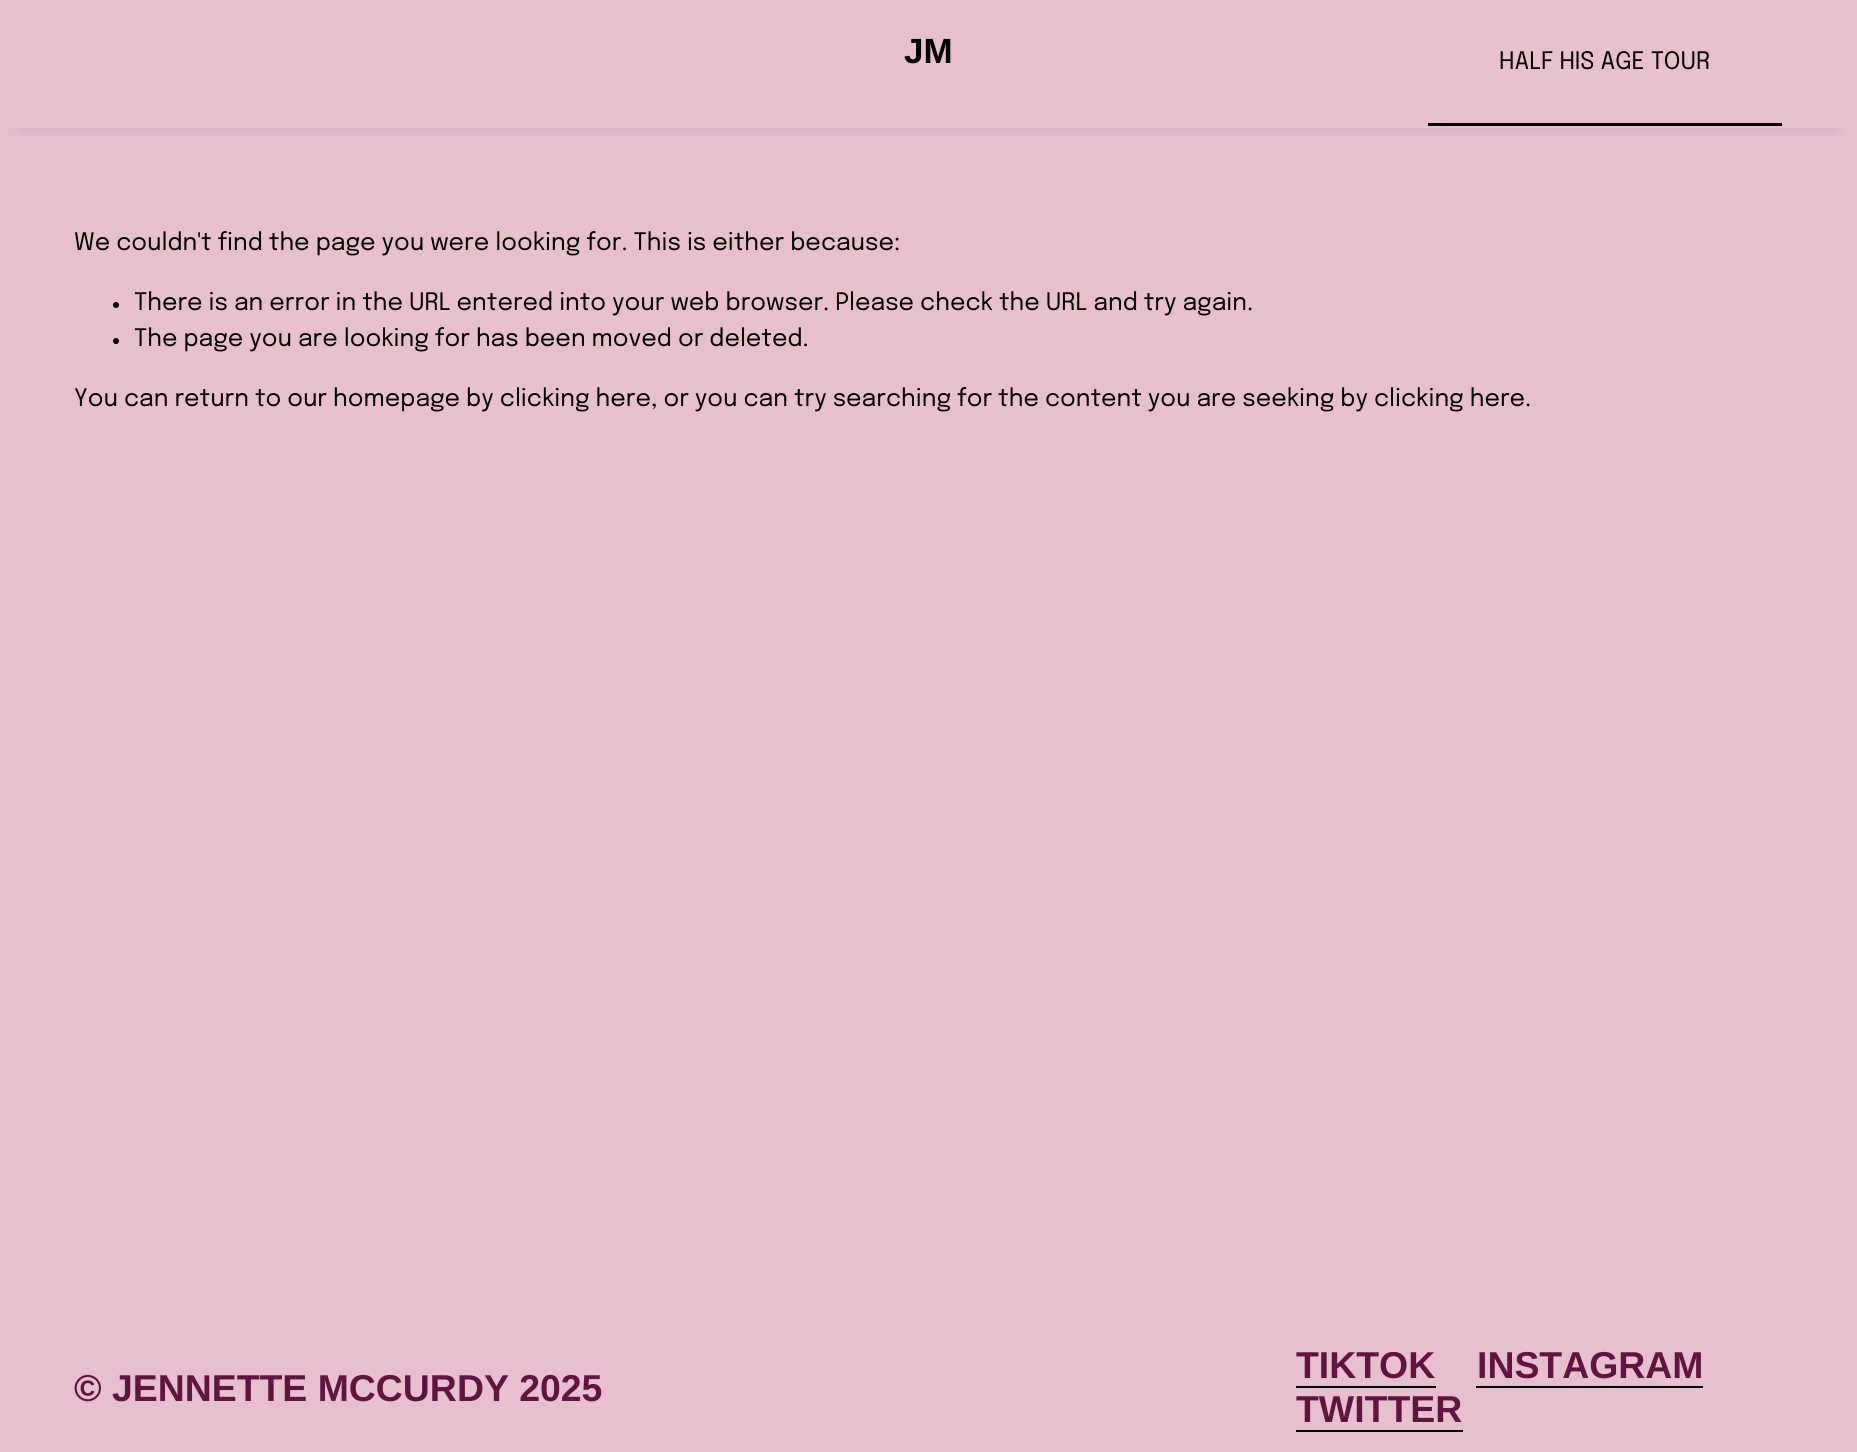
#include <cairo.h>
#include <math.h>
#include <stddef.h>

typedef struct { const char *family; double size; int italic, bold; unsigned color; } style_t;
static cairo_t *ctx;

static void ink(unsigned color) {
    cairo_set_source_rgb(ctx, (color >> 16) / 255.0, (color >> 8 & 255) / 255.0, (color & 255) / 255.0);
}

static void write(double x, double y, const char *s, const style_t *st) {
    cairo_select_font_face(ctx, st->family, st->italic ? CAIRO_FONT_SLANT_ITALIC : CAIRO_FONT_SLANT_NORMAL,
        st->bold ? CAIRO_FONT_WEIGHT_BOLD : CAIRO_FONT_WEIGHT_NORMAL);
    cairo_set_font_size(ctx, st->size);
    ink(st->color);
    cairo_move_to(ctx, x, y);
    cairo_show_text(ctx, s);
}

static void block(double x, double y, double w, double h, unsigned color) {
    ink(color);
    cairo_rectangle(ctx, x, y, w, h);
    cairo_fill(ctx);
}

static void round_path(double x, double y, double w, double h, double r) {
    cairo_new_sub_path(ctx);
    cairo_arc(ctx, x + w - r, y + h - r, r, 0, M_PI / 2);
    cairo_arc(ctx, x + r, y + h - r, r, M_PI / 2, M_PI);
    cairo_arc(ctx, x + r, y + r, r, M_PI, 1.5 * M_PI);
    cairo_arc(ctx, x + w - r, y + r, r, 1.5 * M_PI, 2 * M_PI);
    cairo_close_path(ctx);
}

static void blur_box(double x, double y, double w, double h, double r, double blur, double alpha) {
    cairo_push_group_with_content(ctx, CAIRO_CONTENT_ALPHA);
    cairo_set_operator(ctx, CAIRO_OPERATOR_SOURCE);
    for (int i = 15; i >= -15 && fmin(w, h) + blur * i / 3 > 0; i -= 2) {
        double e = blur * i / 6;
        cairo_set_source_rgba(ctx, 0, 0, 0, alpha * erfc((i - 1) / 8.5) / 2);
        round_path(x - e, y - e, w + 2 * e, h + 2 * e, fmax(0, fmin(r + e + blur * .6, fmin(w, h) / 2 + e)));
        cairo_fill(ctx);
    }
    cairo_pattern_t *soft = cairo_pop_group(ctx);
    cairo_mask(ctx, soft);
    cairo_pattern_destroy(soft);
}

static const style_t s1 = {"Liberation Sans", 35, 0, 1, 0x000000};
static const style_t s2 = {"Epilogue", 24, 0, 0, 0x000000};
static const style_t s3 = {"Liberation Sans", 37.4, 0, 1, 0x601440};

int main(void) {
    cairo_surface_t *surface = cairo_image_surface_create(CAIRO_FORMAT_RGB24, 1857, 1452);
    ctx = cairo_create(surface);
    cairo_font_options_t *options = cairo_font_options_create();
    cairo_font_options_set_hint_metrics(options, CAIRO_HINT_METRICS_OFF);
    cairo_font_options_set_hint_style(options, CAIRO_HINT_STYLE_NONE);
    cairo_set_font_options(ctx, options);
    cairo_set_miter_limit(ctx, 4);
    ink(0xe8bfcf);
    cairo_paint(ctx);
    cairo_save(ctx);
    cairo_set_fill_rule(ctx, CAIRO_FILL_RULE_EVEN_ODD);
    cairo_new_path(ctx);
    cairo_move_to(ctx, 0, 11);
    cairo_line_to(ctx, 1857, 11);
    cairo_line_to(ctx, 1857, 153);
    cairo_line_to(ctx, 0, 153);
    cairo_close_path(ctx);
    cairo_move_to(ctx, 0, 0);
    cairo_line_to(ctx, 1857, 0);
    cairo_line_to(ctx, 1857, 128);
    cairo_line_to(ctx, 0, 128);
    cairo_close_path(ctx);
    cairo_clip(ctx);
    ink(0xc5a2b0);
    blur_box(21, 39, 1815, 86, 0, 9, 1);
    cairo_restore(ctx);
    write(904, 63, "JM", &s1);
    block(1428, 123, 354, 3, 0x000000);
    write(1499, 69, "HALF HIS AGE TOUR", &s2);
    write(74, 250, "We couldn't find the page you were looking for. This is either because:", &s2);
    cairo_new_path(ctx);
    cairo_arc(ctx, 116, 305, 3, 0, 2 * M_PI);
    cairo_fill(ctx);
    write(134, 310, "There is an error in the URL entered into your web browser. Please check the URL and try again.", &s2);
    cairo_new_path(ctx);
    cairo_arc(ctx, 116, 341, 3, 0, 2 * M_PI);
    cairo_fill(ctx);
    write(134, 346, "The page you are looking for has been moved or deleted.", &s2);
    write(74, 406, "You can return to our homepage by clicking here, or you can try searching for the content you are seeking by clicking here.", &s2);
    write(74, 1401, "© JENNETTE MCCURDY 2025", &s3);
    write(1296, 1378, "TIKTOK", &s3);
    block(1296, 1386, 140, 2, 0x000000);
    write(1477, 1378, "INSTAGRAM", &s3);
    block(1476, 1386, 227, 2, 0x000000);
    write(1296, 1422, "TWITTER", &s3);
    block(1296, 1430, 167, 2, 0x000000);
    cairo_surface_write_to_png(surface, "screenshot.png");
    cairo_font_options_destroy(options);
    cairo_destroy(ctx);
    cairo_surface_destroy(surface);
    return 0;
}
